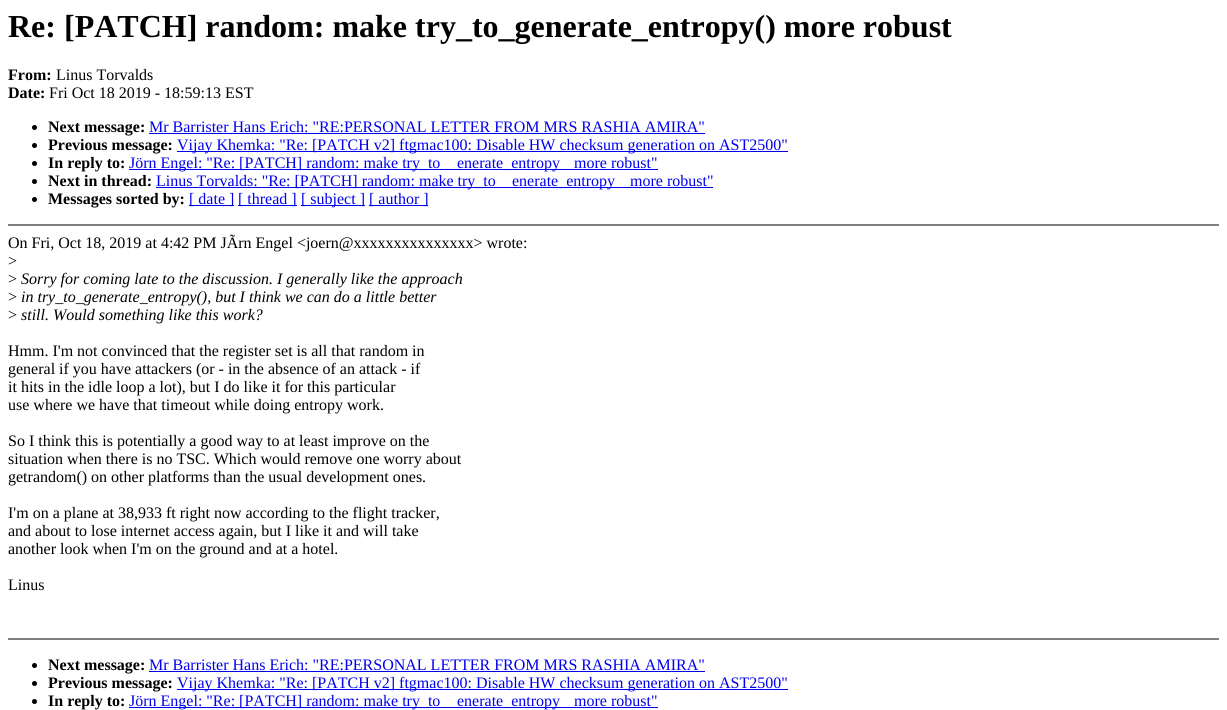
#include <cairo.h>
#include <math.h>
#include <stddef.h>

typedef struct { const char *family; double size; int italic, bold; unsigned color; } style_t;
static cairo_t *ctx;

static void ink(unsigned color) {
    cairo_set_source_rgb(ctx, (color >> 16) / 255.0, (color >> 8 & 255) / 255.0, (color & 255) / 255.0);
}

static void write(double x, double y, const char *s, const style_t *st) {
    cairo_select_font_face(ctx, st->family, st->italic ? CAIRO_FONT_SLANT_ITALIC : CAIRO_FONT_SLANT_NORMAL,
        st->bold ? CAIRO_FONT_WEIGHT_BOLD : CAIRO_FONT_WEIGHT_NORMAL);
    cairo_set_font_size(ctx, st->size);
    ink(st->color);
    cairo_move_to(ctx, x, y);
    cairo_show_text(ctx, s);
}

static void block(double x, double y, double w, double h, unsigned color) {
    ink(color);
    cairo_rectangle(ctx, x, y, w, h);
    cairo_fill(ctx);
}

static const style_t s1 = {"Liberation Serif", 32, 0, 1, 0x000000};
static const style_t s2 = {"Liberation Serif", 16, 0, 1, 0x000000};
static const style_t s3 = {"Liberation Serif", 16, 0, 0, 0x000000};
static const style_t s4 = {"Liberation Serif", 16, 0, 0, 0x0000ee};
static const style_t s5 = {"Liberation Serif", 16, 1, 0, 0x000000};

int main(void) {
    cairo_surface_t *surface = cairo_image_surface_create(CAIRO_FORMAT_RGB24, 1227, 710);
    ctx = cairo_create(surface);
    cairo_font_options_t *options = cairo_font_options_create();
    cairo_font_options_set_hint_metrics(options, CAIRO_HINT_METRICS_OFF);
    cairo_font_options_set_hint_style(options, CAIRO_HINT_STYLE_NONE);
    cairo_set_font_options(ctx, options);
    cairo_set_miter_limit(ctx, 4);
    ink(0xffffff);
    cairo_paint(ctx);
    write(8, 37, "Re: [PATCH] random: make try_to_generate_entropy() more robust", &s1);
    write(8, 80, "From:", &s2);
    write(56, 80, "Linus Torvalds", &s3);
    write(8, 98, "Date:", &s2);
    write(49, 98, "Fri Oct 18 2019 - 18:59:13 EST", &s3);
    cairo_new_path(ctx);
    cairo_arc(ctx, 34.5, 127.5, 2.5, 0, 2 * M_PI);
    cairo_fill(ctx);
    write(48, 132, "Next message:", &s2);
    write(149, 132, "Mr Barrister Hans Erich: \"RE:PERSONAL LETTER FROM MRS RASHIA AMIRA\"", &s4);
    block(149, 133, 556, 1, 0x0000ee);
    ink(0x000000);
    cairo_new_path(ctx);
    cairo_arc(ctx, 34.5, 145.5, 2.5, 0, 2 * M_PI);
    cairo_fill(ctx);
    write(48, 150, "Previous message:", &s2);
    block(177, 151, 611, 1, 0x0000ee);
    write(177, 150, "Vijay Khemka: \"Re: [PATCH v2] ftgmac100: Disable HW checksum generation on AST2500\"", &s4);
    ink(0x000000);
    cairo_new_path(ctx);
    cairo_arc(ctx, 34.5, 163.5, 2.5, 0, 2 * M_PI);
    cairo_fill(ctx);
    write(48, 168, "In reply to:", &s2);
    block(129, 169, 529, 1, 0x0000ee);
    write(129, 168, "Jörn Engel: \"Re: [PATCH] random: make try_to", &s4);
    write(457, 168, "enerate_entropy", &s4);
    write(574, 168, "more robust\"", &s4);
    ink(0x000000);
    cairo_new_path(ctx);
    cairo_arc(ctx, 34.5, 181.5, 2.5, 0, 2 * M_PI);
    cairo_fill(ctx);
    write(48, 186, "Next in thread:", &s2);
    block(156, 187, 557, 1, 0x0000ee);
    write(156, 186, "Linus Torvalds: \"Re: [PATCH] random: make try_to", &s4);
    write(512, 186, "enerate_entropy", &s4);
    write(630, 186, "more robust\"", &s4);
    ink(0x000000);
    cairo_new_path(ctx);
    cairo_arc(ctx, 34.5, 199.5, 2.5, 0, 2 * M_PI);
    cairo_fill(ctx);
    write(48, 204, "Messages sorted by:", &s2);
    block(189, 205, 45, 1, 0x0000ee);
    write(189, 204, "[ date ]", &s4);
    block(238, 205, 59, 1, 0x0000ee);
    write(238, 204, "[ thread ]", &s4);
    block(301, 205, 64, 1, 0x0000ee);
    write(301, 204, "[ subject ]", &s4);
    block(369, 205, 59, 1, 0x0000ee);
    write(369, 204, "[ author ]", &s4);
    block(8, 224, 1211, 2, 0x808080);
    write(8, 248, "On Fri, Oct 18, 2019 at 4:42 PM JÃrn Engel <joern@xxxxxxxxxxxxxxx> wrote:", &s3);
    write(8, 266, ">", &s3);
    write(8, 284, ">", &s3);
    write(21, 284, "Sorry for coming late to the discussion. I generally like the approach", &s5);
    write(8, 302, ">", &s3);
    write(21, 302, "in try_to_generate_entropy(), but I think we can do a little better", &s5);
    write(8, 320, ">", &s3);
    write(21, 320, "still. Would something like this work?", &s5);
    write(8, 356, "Hmm. I'm not convinced that the register set is all that random in", &s3);
    write(8, 374, "general if you have attackers (or - in the absence of an attack - if", &s3);
    write(8, 392, "it hits in the idle loop a lot), but I do like it for this particular", &s3);
    write(8, 410, "use where we have that timeout while doing entropy work.", &s3);
    write(8, 446, "So I think this is potentially a good way to at least improve on the", &s3);
    write(8, 464, "situation when there is no TSC. Which would remove one worry about", &s3);
    write(8, 482, "getrandom() on other platforms than the usual development ones.", &s3);
    write(8, 518, "I'm on a plane at 38,933 ft right now according to the flight tracker,", &s3);
    write(8, 536, "and about to lose internet access again, but I like it and will take", &s3);
    write(8, 554, "another look when I'm on the ground and at a hotel.", &s3);
    write(8, 590, "Linus", &s3);
    block(8, 638, 1211, 2, 0x808080);
    ink(0x000000);
    cairo_new_path(ctx);
    cairo_arc(ctx, 34.5, 665.5, 2.5, 0, 2 * M_PI);
    cairo_fill(ctx);
    write(48, 670, "Next message:", &s2);
    write(149, 670, "Mr Barrister Hans Erich: \"RE:PERSONAL LETTER FROM MRS RASHIA AMIRA\"", &s4);
    block(149, 671, 556, 1, 0x0000ee);
    ink(0x000000);
    cairo_new_path(ctx);
    cairo_arc(ctx, 34.5, 683.5, 2.5, 0, 2 * M_PI);
    cairo_fill(ctx);
    write(48, 688, "Previous message:", &s2);
    block(177, 689, 611, 1, 0x0000ee);
    write(177, 688, "Vijay Khemka: \"Re: [PATCH v2] ftgmac100: Disable HW checksum generation on AST2500\"", &s4);
    ink(0x000000);
    cairo_new_path(ctx);
    cairo_arc(ctx, 34.5, 701.5, 2.5, 0, 2 * M_PI);
    cairo_fill(ctx);
    write(48, 706, "In reply to:", &s2);
    block(129, 707, 529, 1, 0x0000ee);
    write(129, 706, "Jörn Engel: \"Re: [PATCH] random: make try_to", &s4);
    write(457, 706, "enerate_entropy", &s4);
    write(574, 706, "more robust\"", &s4);
    cairo_surface_write_to_png(surface, "screenshot.png");
    cairo_font_options_destroy(options);
    cairo_destroy(ctx);
    cairo_surface_destroy(surface);
    return 0;
}
